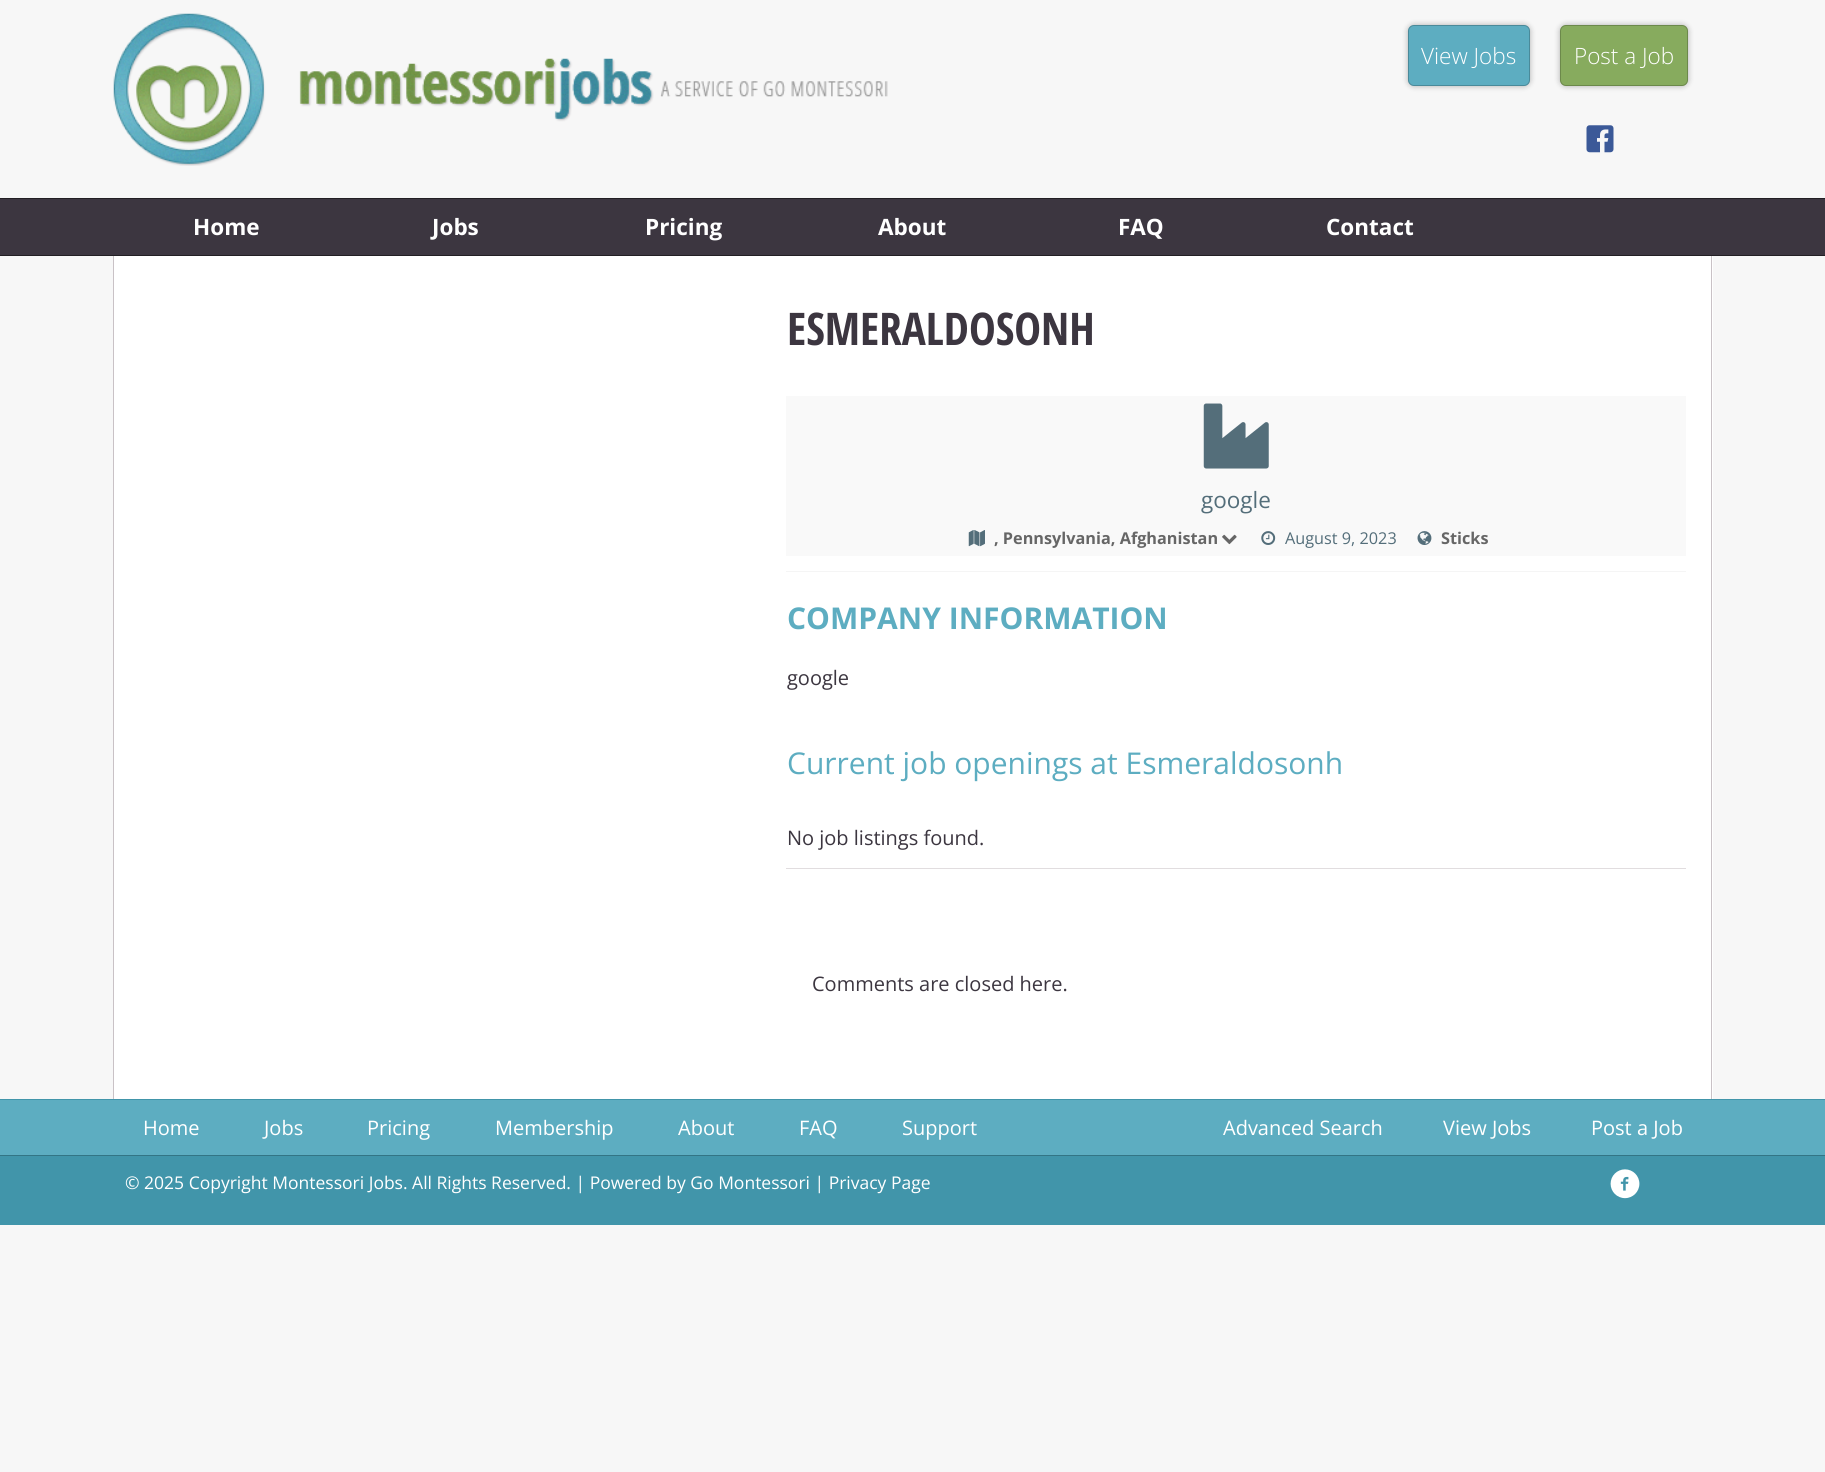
#include <cairo.h>
#include <math.h>
#include <stddef.h>

typedef struct { const char *family; double size; int italic, bold; unsigned color; } style_t;
static cairo_t *ctx;

static void ink(unsigned color) {
    cairo_set_source_rgb(ctx, (color >> 16) / 255.0, (color >> 8 & 255) / 255.0, (color & 255) / 255.0);
}

static void write(double x, double y, const char *s, const style_t *st) {
    cairo_select_font_face(ctx, st->family, st->italic ? CAIRO_FONT_SLANT_ITALIC : CAIRO_FONT_SLANT_NORMAL,
        st->bold ? CAIRO_FONT_WEIGHT_BOLD : CAIRO_FONT_WEIGHT_NORMAL);
    cairo_set_font_size(ctx, st->size);
    ink(st->color);
    cairo_move_to(ctx, x, y);
    cairo_show_text(ctx, s);
}

static void block(double x, double y, double w, double h, unsigned color) {
    ink(color);
    cairo_rectangle(ctx, x, y, w, h);
    cairo_fill(ctx);
}

static void round_path(double x, double y, double w, double h, double r) {
    cairo_new_sub_path(ctx);
    cairo_arc(ctx, x + w - r, y + h - r, r, 0, M_PI / 2);
    cairo_arc(ctx, x + r, y + h - r, r, M_PI / 2, M_PI);
    cairo_arc(ctx, x + r, y + r, r, M_PI, 1.5 * M_PI);
    cairo_arc(ctx, x + w - r, y + r, r, 1.5 * M_PI, 2 * M_PI);
    cairo_close_path(ctx);
}

static void blur_box(double x, double y, double w, double h, double r, double blur, double alpha) {
    cairo_push_group_with_content(ctx, CAIRO_CONTENT_ALPHA);
    cairo_set_operator(ctx, CAIRO_OPERATOR_SOURCE);
    for (int i = 15; i >= -15 && fmin(w, h) + blur * i / 3 > 0; i -= 2) {
        double e = blur * i / 6;
        cairo_set_source_rgba(ctx, 0, 0, 0, alpha * erfc((i - 1) / 8.5) / 2);
        round_path(x - e, y - e, w + 2 * e, h + 2 * e, fmax(0, fmin(r + e + blur * .6, fmin(w, h) / 2 + e)));
        cairo_fill(ctx);
    }
    cairo_pattern_t *soft = cairo_pop_group(ctx);
    cairo_mask(ctx, soft);
    cairo_pattern_destroy(soft);
}

static void paste(const char *path, double x, double y, double w, double h) {
    cairo_surface_t *image = cairo_image_surface_create_from_png(path);
    cairo_save(ctx);
    cairo_set_source_surface(ctx, image, x, y);
    cairo_rectangle(ctx, x, y, w, h);
    cairo_fill(ctx);
    cairo_restore(ctx);
    cairo_surface_destroy(image);
}

static const style_t s1 = {"Open Sans Light", 22.5, 0, 0, 0xffffff};
static const style_t s2 = {"Open Sans", 22.5, 0, 1, 0xffffff};
static const style_t s3 = {"Open Sans Condensed", 45, 0, 1, 0x3c3640};
static const style_t s4 = {"Open Sans", 22.5, 0, 0, 0x546e7a};
static const style_t s5 = {"Open Sans", 16.25, 0, 1, 0x666666};
static const style_t s6 = {"Open Sans", 16.25, 0, 0, 0x546e7a};
static const style_t s7 = {"Open Sans", 30, 0, 1, 0x5dadc1};
static const style_t s8 = {"Open Sans", 20, 0, 0, 0x3c3640};
static const style_t s9 = {"Open Sans", 30, 0, 0, 0x5dadc1};
static const style_t s10 = {"Open Sans", 20, 0, 0, 0xffffff};
static const style_t s11 = {"Open Sans", 17.5, 0, 0, 0xffffff};

int main(void) {
    cairo_surface_t *surface = cairo_image_surface_create(CAIRO_FORMAT_RGB24, 1825, 1472);
    ctx = cairo_create(surface);
    cairo_font_options_t *options = cairo_font_options_create();
    cairo_font_options_set_hint_metrics(options, CAIRO_HINT_METRICS_OFF);
    cairo_font_options_set_hint_style(options, CAIRO_HINT_STYLE_NONE);
    cairo_set_font_options(ctx, options);
    cairo_set_miter_limit(ctx, 4);
    ink(0xf7f7f7);
    cairo_paint(ctx);
    paste("pic1.png", 113, 13, 775, 153);
    ink(0x000000);
    blur_box(1408, 25, 122, 61, 6, 3, 0.3);
    ink(0x5dadc1);
    round_path(1408, 25, 122, 61, 6);
    cairo_fill(ctx);
    round_path(1408.5, 25.5, 121, 60, 5.5);
    cairo_set_source_rgba(ctx, 0, 0, 0, 0.2);
    cairo_set_line_width(ctx, 1);
    cairo_stroke(ctx);
    write(1421, 64, "View Jobs", &s1);
    ink(0x000000);
    blur_box(1560, 25, 128, 61, 6, 3, 0.3);
    ink(0x87ab5e);
    round_path(1560, 25, 128, 61, 6);
    cairo_fill(ctx);
    round_path(1560.5, 25.5, 127, 60, 5.5);
    cairo_set_source_rgba(ctx, 0, 0, 0, 0.2);
    cairo_stroke(ctx);
    write(1574, 64, "Post a Job", &s1);
    paste("pic2.png", 1586, 125, 28, 28);
    block(0, 199, 1825, 56, 0x3c3640);
    block(0, 198, 1825, 1, 0x221f24);
    block(0, 255, 1825, 1, 0x221f24);
    write(193, 235, "Home", &s2);
    write(432, 235, "Jobs", &s2);
    write(645, 235, "Pricing", &s2);
    write(878, 235, "About", &s2);
    write(1118, 235, "FAQ", &s2);
    write(1326, 235, "Contact", &s2);
    block(114, 256, 1599, 843, 0xffffff);
    block(1711, 256, 1, 843, 0xc9c2c6);
    block(113, 256, 1, 843, 0xc9c2c6);
    write(787, 345, "ESMERALDOSONH", &s3);
    block(786, 396, 900, 160, 0xf9f9f9);
    paste("pic3.png", 1203, 403, 66, 66);
    write(1201, 508, "google", &s4);
    paste("pic4.png", 968, 530, 17, 17);
    write(994, 544, ", Pennsylvania, Afghanistan", &s5);
    paste("pic5.png", 1222, 534, 15, 11);
    paste("pic6.png", 1261, 531, 15, 14);
    write(1285, 544, "August 9, 2023", &s6);
    paste("pic7.png", 1417, 531, 15, 14);
    write(1441, 544, "Sticks", &s5);
    block(786, 571, 900, 1, 0xf5f5f5);
    write(787, 629, "COMPANY INFORMATION", &s7);
    write(787, 685, "google", &s8);
    write(787, 774, "Current job openings at Esmeraldosonh", &s9);
    block(786, 868, 900, 1, 0xe1dddf);
    write(787, 845, "No job listings found.", &s8);
    write(812, 991, "Comments are closed here.", &s8);
    block(0, 1156, 1825, 69, 0x4195aa);
    block(0, 1100, 1825, 55, 0x5dadc1);
    block(0, 1099, 1825, 1, 0x4195aa);
    block(0, 1155, 1825, 1, 0x337585);
    write(143, 1135, "Home", &s10);
    write(264, 1135, "Jobs", &s10);
    write(367, 1135, "Pricing", &s10);
    write(495, 1135, "Membership", &s10);
    write(678, 1135, "About", &s10);
    write(799, 1135, "FAQ", &s10);
    write(902, 1135, "Support", &s10);
    write(1223, 1135, "Advanced Search", &s10);
    write(1443, 1135, "View Jobs", &s10);
    write(1591, 1135, "Post a Job", &s10);
    write(125, 1189, "© 2025 Copyright Montessori Jobs. All Rights Reserved. | Powered by Go Montessori | Privacy Page", &s11);
    paste("pic8.png", 1610, 1169, 30, 30);
    cairo_surface_write_to_png(surface, "screenshot.png");
    cairo_font_options_destroy(options);
    cairo_destroy(ctx);
    cairo_surface_destroy(surface);
    return 0;
}
